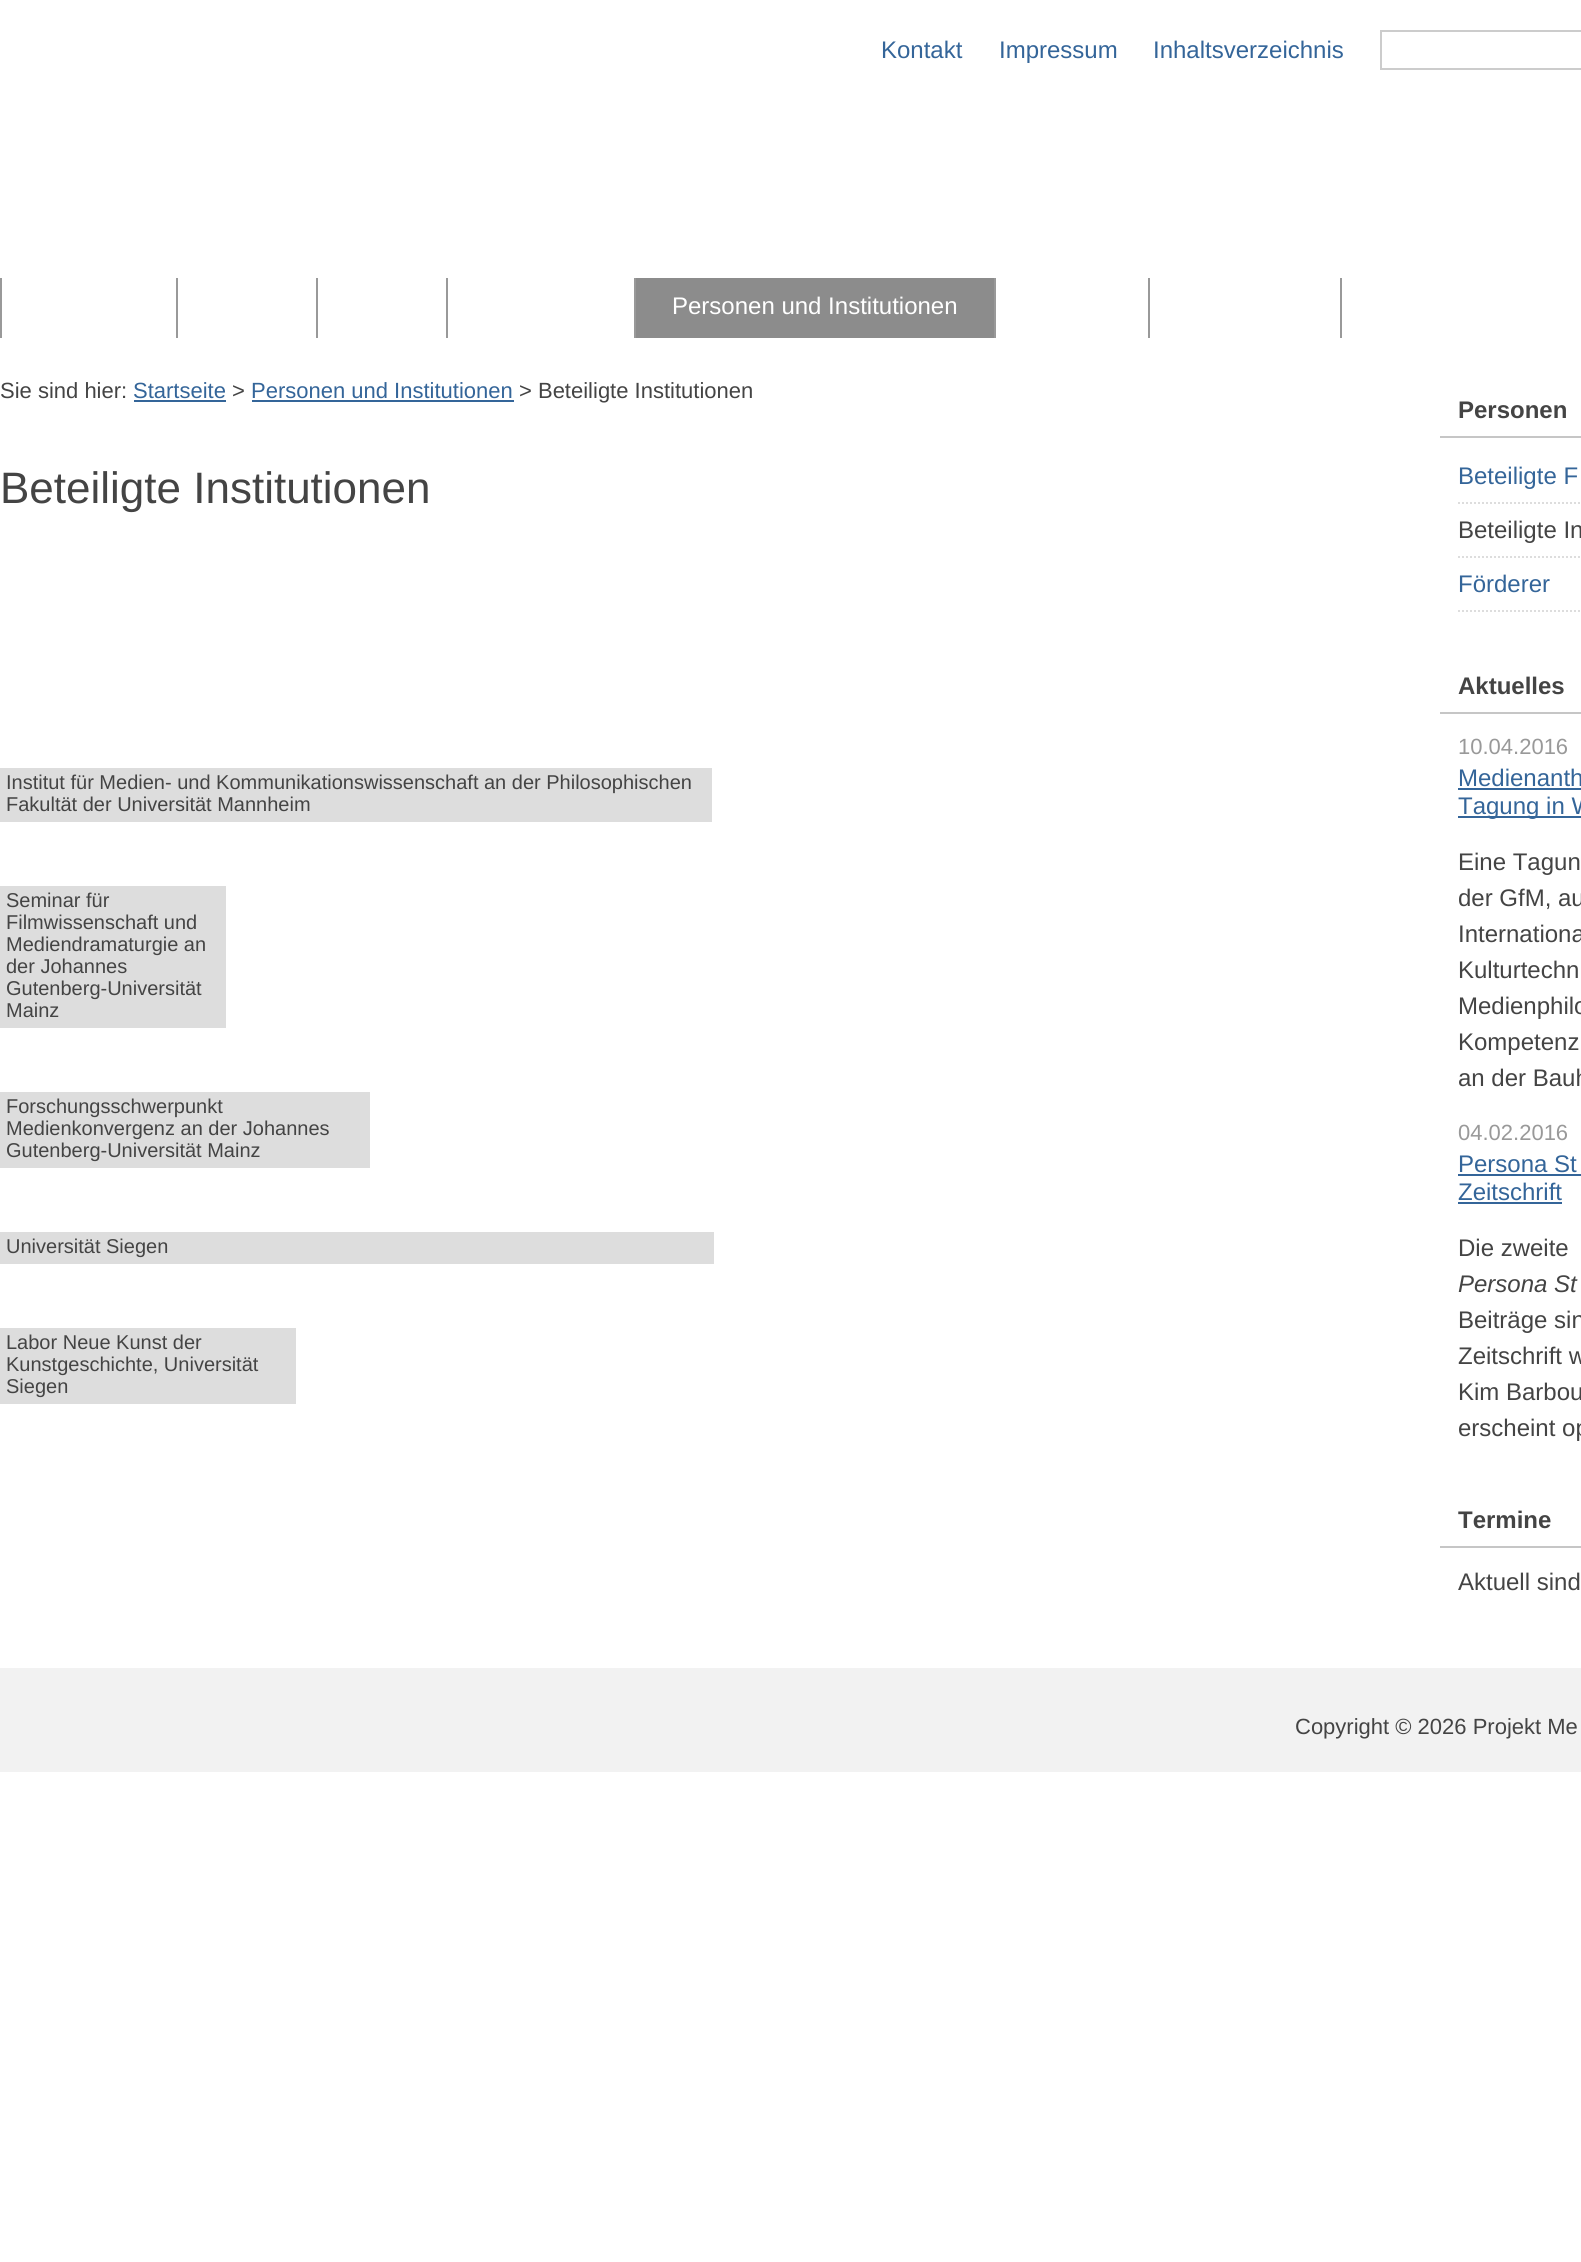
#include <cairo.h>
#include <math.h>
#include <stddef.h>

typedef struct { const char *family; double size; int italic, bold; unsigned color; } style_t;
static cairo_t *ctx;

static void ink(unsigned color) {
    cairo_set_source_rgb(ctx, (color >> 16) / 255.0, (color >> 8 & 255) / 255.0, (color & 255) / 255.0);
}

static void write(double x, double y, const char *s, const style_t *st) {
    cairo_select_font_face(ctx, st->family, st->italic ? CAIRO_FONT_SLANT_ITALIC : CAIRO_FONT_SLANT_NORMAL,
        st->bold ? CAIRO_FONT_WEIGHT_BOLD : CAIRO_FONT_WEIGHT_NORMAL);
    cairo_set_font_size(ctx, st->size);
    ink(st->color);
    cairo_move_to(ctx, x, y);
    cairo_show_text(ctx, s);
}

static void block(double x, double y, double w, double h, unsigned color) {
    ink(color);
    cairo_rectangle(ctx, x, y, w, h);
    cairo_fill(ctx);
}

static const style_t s1 = {"Liberation Sans", 24, 0, 0, 0x346599};
static const style_t s2 = {"Liberation Sans", 24, 0, 0, 0xffffff};
static const style_t s3 = {"Liberation Sans", 22, 0, 0, 0x444444};
static const style_t s4 = {"Liberation Sans", 22, 0, 0, 0x346599};
static const style_t s5 = {"Liberation Sans", 44, 0, 0, 0x444444};
static const style_t s6 = {"Liberation Sans", 20, 0, 0, 0x444444};
static const style_t s7 = {"Liberation Sans", 24, 0, 1, 0x444444};
static const style_t s8 = {"Liberation Sans", 24, 0, 0, 0x444444};
static const style_t s9 = {"Liberation Sans", 22, 0, 0, 0x999999};
static const style_t s10 = {"Liberation Sans", 24, 1, 0, 0x444444};

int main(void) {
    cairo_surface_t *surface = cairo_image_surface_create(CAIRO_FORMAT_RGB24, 1581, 2262);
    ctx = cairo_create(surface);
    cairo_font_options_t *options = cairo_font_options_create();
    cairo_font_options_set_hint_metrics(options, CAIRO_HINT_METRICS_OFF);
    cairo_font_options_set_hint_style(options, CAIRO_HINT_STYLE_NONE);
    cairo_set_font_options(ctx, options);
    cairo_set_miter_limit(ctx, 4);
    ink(0xffffff);
    cairo_paint(ctx);
    write(881, 58, "Kontakt", &s1);
    write(999, 58, "Impressum", &s1);
    write(1153, 58, "Inhaltsverzeichnis", &s1);
    cairo_rectangle(ctx, 1381, 31, 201, 38);
    ink(0xcccccc);
    cairo_stroke(ctx);
    block(0, 278, 2, 60, 0x999999);
    block(176, 278, 2, 60, 0x999999);
    block(316, 278, 2, 60, 0x999999);
    block(446, 278, 2, 60, 0x999999);
    block(634, 278, 2, 60, 0x999999);
    block(636, 278, 358, 60, 0x8c8c8c);
    block(994, 278, 2, 60, 0x999999);
    write(672, 314, "Personen und Institutionen", &s2);
    block(1148, 278, 2, 60, 0x999999);
    block(1340, 278, 2, 60, 0x999999);
    write(0, 398, "Sie sind hier:", &s3);
    write(133, 398, "Startseite", &s4);
    block(134, 400, 92, 2, 0x346599);
    write(232, 398, ">", &s3);
    write(251, 398, "Personen und Institutionen", &s4);
    block(252, 400, 262, 2, 0x346599);
    write(519, 398, "> Beteiligte Institutionen", &s3);
    write(0, 503, "Beteiligte Institutionen", &s5);
    block(0, 768, 712, 54, 0xdddddd);
    write(6, 789, "Institut für Medien- und Kommunikationswissenschaft an der Philosophischen", &s6);
    write(6, 811, "Fakultät der Universität Mannheim", &s6);
    block(0, 886, 226, 142, 0xdddddd);
    write(6, 907, "Seminar für", &s6);
    write(6, 929, "Filmwissenschaft und", &s6);
    write(6, 951, "Mediendramaturgie an", &s6);
    write(6, 973, "der Johannes", &s6);
    write(6, 995, "Gutenberg-Universität", &s6);
    write(6, 1017, "Mainz", &s6);
    block(0, 1092, 370, 76, 0xdddddd);
    write(6, 1113, "Forschungsschwerpunkt", &s6);
    write(6, 1135, "Medienkonvergenz an der Johannes", &s6);
    write(6, 1157, "Gutenberg-Universität Mainz", &s6);
    block(0, 1232, 714, 32, 0xdddddd);
    write(6, 1253, "Universität Siegen", &s6);
    block(0, 1328, 296, 76, 0xdddddd);
    write(6, 1349, "Labor Neue Kunst der", &s6);
    write(6, 1371, "Kunstgeschichte, Universität", &s6);
    write(6, 1393, "Siegen", &s6);
    block(1440, 436, 141, 2, 0xc6c6c6);
    write(1458, 418, "Personen", &s7);
    cairo_new_path(ctx);
    cairo_move_to(ctx, 1458, 503);
    cairo_line_to(ctx, 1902, 503);
    ink(0xdddddd);
    cairo_set_dash(ctx, (double[]){2, 2}, 2, 0);
    cairo_stroke(ctx);
    write(1458, 484, "Beteiligte F", &s1);
    cairo_new_path(ctx);
    cairo_move_to(ctx, 1458, 557);
    cairo_line_to(ctx, 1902, 557);
    ink(0xdddddd);
    cairo_stroke(ctx);
    write(1458, 538, "Beteiligte In", &s8);
    cairo_new_path(ctx);
    cairo_move_to(ctx, 1458, 611);
    cairo_line_to(ctx, 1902, 611);
    ink(0xdddddd);
    cairo_stroke(ctx);
    write(1458, 592, "Förderer", &s1);
    block(1440, 712, 141, 2, 0xc6c6c6);
    write(1458, 694, "Aktuelles", &s7);
    write(1458, 754, "10.04.2016", &s9);
    write(1458, 786, "Medienanth", &s1);
    block(1458, 788, 123, 2, 0x346599);
    block(1458, 816, 123, 2, 0x346599);
    write(1458, 814, "Tagung in W", &s1);
    write(1458, 870, "Eine Tagun", &s8);
    write(1458, 906, "der GfM, au", &s8);
    write(1458, 942, "Internationa", &s8);
    write(1458, 978, "Kulturtechn", &s8);
    write(1458, 1014, "Medienphilo", &s8);
    write(1458, 1050, "Kompetenz", &s8);
    write(1458, 1086, "an der Bauh", &s8);
    write(1458, 1140, "04.02.2016", &s9);
    write(1458, 1172, "Persona St", &s1);
    block(1458, 1174, 123, 2, 0x346599);
    write(1458, 1200, "Zeitschrift", &s1);
    block(1458, 1202, 104, 2, 0x346599);
    write(1458, 1256, "Die zweite", &s8);
    write(1458, 1292, "Persona St", &s10);
    write(1458, 1328, "Beiträge sin", &s8);
    write(1458, 1364, "Zeitschrift w", &s8);
    write(1458, 1400, "Kim Barbou", &s8);
    write(1458, 1436, "erscheint op", &s8);
    block(1440, 1546, 141, 2, 0xc6c6c6);
    write(1458, 1528, "Termine", &s7);
    write(1458, 1590, "Aktuell sind", &s8);
    block(0, 1668, 1581, 104, 0xf2f2f2);
    write(1295, 1734, "Copyright © 2026 Projekt Me", &s3);
    cairo_surface_write_to_png(surface, "screenshot.png");
    cairo_font_options_destroy(options);
    cairo_destroy(ctx);
    cairo_surface_destroy(surface);
    return 0;
}
